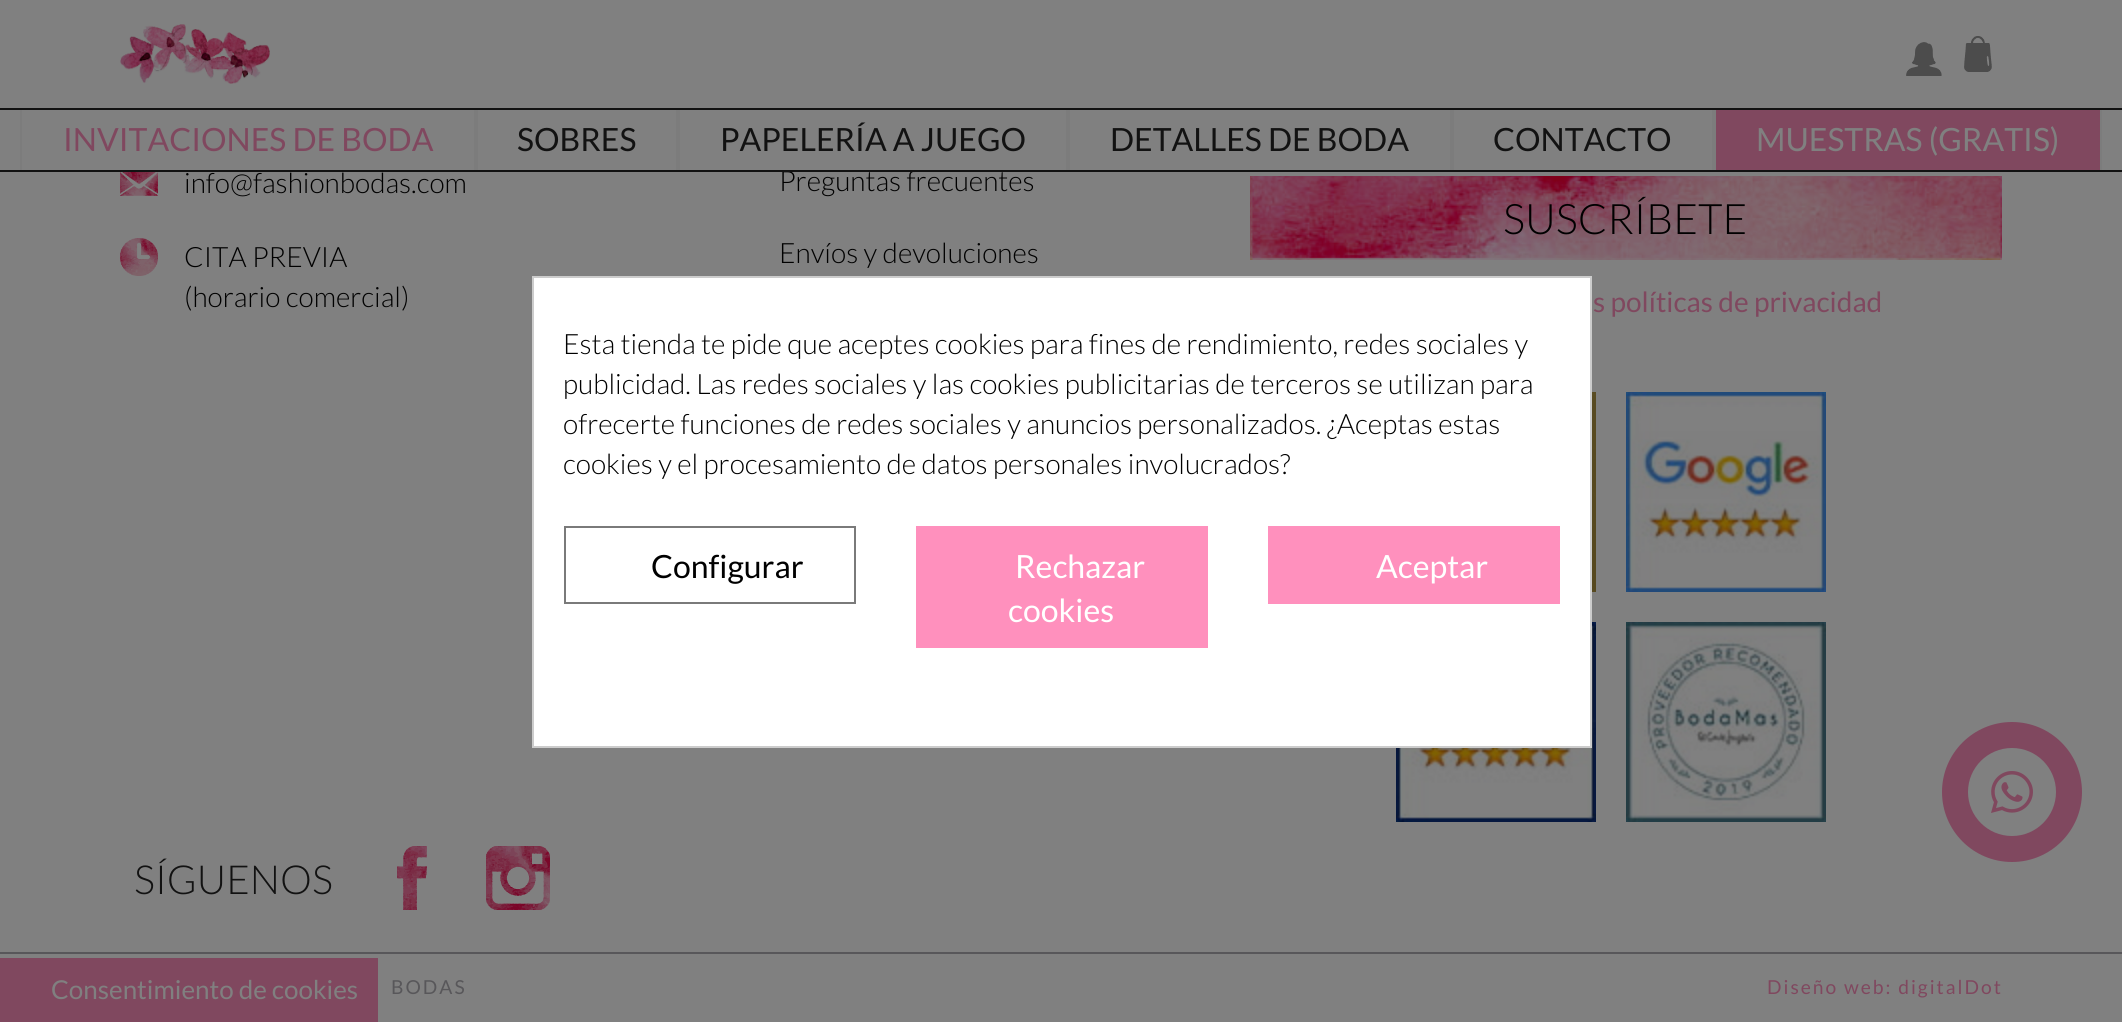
#include <cairo.h>
#include <math.h>
#include <stddef.h>

typedef struct { const char *family; double size; int italic, bold; unsigned color; } style_t;
static cairo_t *ctx;

static void ink(unsigned color) {
    cairo_set_source_rgb(ctx, (color >> 16) / 255.0, (color >> 8 & 255) / 255.0, (color & 255) / 255.0);
}

static void write(double x, double y, const char *s, const style_t *st) {
    cairo_select_font_face(ctx, st->family, st->italic ? CAIRO_FONT_SLANT_ITALIC : CAIRO_FONT_SLANT_NORMAL,
        st->bold ? CAIRO_FONT_WEIGHT_BOLD : CAIRO_FONT_WEIGHT_NORMAL);
    cairo_set_font_size(ctx, st->size);
    ink(st->color);
    cairo_move_to(ctx, x, y);
    cairo_show_text(ctx, s);
}

static void write_spaced(double x, double y, const char *s, double letter, double word) {
    cairo_move_to(ctx, x, y);
    while (*s) {
        char ch[5] = {0};
        int n = 0;
        do ch[n++] = *s++; while ((*s & 0xC0) == 0x80);
        cairo_show_text(ctx, ch);
        cairo_rel_move_to(ctx, letter + word * (*ch == ' '), 0);
    }
}

static void block(double x, double y, double w, double h, unsigned color) {
    ink(color);
    cairo_rectangle(ctx, x, y, w, h);
    cairo_fill(ctx);
}

static void paste(const char *path, double x, double y, double w, double h) {
    cairo_surface_t *image = cairo_image_surface_create_from_png(path);
    cairo_save(ctx);
    cairo_set_source_surface(ctx, image, x, y);
    cairo_rectangle(ctx, x, y, w, h);
    cairo_fill(ctx);
    cairo_restore(ctx);
    cairo_surface_destroy(image);
}

static const style_t s1 = {"Lato Light", 28, 0, 0, 0x000000};
static const style_t s2 = {"Lato", 32, 0, 0, 0x80485f};
static const style_t s3 = {"Lato", 32, 0, 0, 0x121212};
static const style_t s4 = {"Lato", 32, 0, 0, 0x808080};
static const style_t s5 = {"Lato Light", 42, 0, 0, 0x000000};
static const style_t s6 = {"Lato", 28, 0, 0, 0x80485f};
static const style_t s7 = {"Lato Light", 40, 0, 0, 0x121212};
static const style_t s8 = {"Lato", 32, 0, 0, 0x000000};
static const style_t s9 = {"Lato", 32, 0, 0, 0xffffff};
static const style_t s10 = {"Lato", 26, 0, 0, 0x808080};

int main(void) {
    cairo_surface_t *surface = cairo_image_surface_create(CAIRO_FORMAT_RGB24, 2122, 1022);
    ctx = cairo_create(surface);
    cairo_font_options_t *options = cairo_font_options_create();
    cairo_font_options_set_hint_metrics(options, CAIRO_HINT_METRICS_OFF);
    cairo_font_options_set_hint_style(options, CAIRO_HINT_STYLE_NONE);
    cairo_set_font_options(ctx, options);
    cairo_set_miter_limit(ctx, 4);
    ink(0x808080);
    cairo_paint(ctx);
    paste("pic1.png", 1906, 42, 36, 34);
    paste("pic2.png", 1964, 36, 28, 36);
    paste("pic3.png", 120, 24, 150, 60);
    block(0, 108, 2122, 2, 0x121212);
    write(779, 191, "Preguntas frecuentes", &s1);
    block(0, 170, 2122, 2, 0x121212);
    block(474, 110, 4, 60, 0x7c7c7c);
    block(20, 110, 2, 60, 0x7c7c7c);
    write(63, 151, "INVITACIONES DE BODA", &s2);
    block(676, 110, 4, 60, 0x7c7c7c);
    write(517, 151, "SOBRES", &s3);
    block(1066, 110, 4, 60, 0x7c7c7c);
    write(720, 151, "PAPELERÍA A JUEGO", &s3);
    block(1450, 110, 4, 60, 0x7c7c7c);
    write(1110, 151, "DETALLES DE BODA", &s3);
    block(1712, 110, 4, 60, 0x7c7c7c);
    write(1493, 151, "CONTACTO", &s3);
    block(2100, 110, 2, 60, 0x7c7c7c);
    block(1716, 110, 384, 60, 0x80485f);
    write(1756, 151, "MUESTRAS (GRATIS)", &s4);
    paste("pic4.png", 120, 172, 38, 24);
    write(184, 193, "info@fashionbodas.com", &s1);
    paste("pic5.png", 120, 238, 38, 38);
    write(184, 267, "CITA PREVIA", &s1);
    write(184, 307, "(horario comercial)", &s1);
    write(779, 263, "Envíos y devoluciones", &s1);
    paste("pic6.png", 1250, 176, 752, 84);
    write(1503, 234, "SUSCRÍBETE", &s5);
    write(1593, 312, "s políticas de privacidad", &s6);
    paste("pic7.png", 1592, 392, 4, 200);
    paste("pic8.png", 1626, 392, 200, 200);
    paste("pic9.png", 1396, 622, 200, 200);
    paste("pic10.png", 1626, 622, 200, 200);
    cairo_arc(ctx, 2012, 792, 70, 0, 2 * M_PI);
    cairo_fill(ctx);
    ink(0x808080);
    cairo_arc(ctx, 2012, 792, 44, 0, 2 * M_PI);
    cairo_fill(ctx);
    paste("pic11.png", 1991, 771, 42, 42);
    write(134, 894, "SÍGUENOS", &s7);
    paste("pic12.png", 397, 846, 30, 64);
    paste("pic13.png", 486, 846, 64, 64);
    block(0, 952, 2122, 2, 0x58575a);
    cairo_select_font_face(ctx, "Lato", CAIRO_FONT_SLANT_NORMAL, CAIRO_FONT_WEIGHT_NORMAL);
    cairo_set_font_size(ctx, 19.25);
    write_spaced(391, 994, "BODAS", 2, 0);
    ink(0x80485f);
    write_spaced(1767, 994, "Diseño web: digitalDot", 2, 0);
    ink(0xffffff);
    cairo_rectangle(ctx, 533, 277, 1058, 470);
    cairo_fill_preserve(ctx);
    ink(0xcccccc);
    cairo_stroke(ctx);
    write(563, 354, "Esta tienda te pide que aceptes cookies para fines de rendimiento, redes sociales y", &s1);
    write(563, 394, "publicidad. Las redes sociales y las cookies publicitarias de terceros se utilizan para", &s1);
    cairo_save(ctx);
    cairo_rectangle(ctx, 564, 326, 996, 160);
    cairo_clip(ctx);
    write(563, 434, "ofrecerte funciones de redes sociales y anuncios personalizados. ¿Aceptas estas", &s1);
    write(563, 474, "cookies y el procesamiento de datos personales involucrados?", &s1);
    cairo_restore(ctx);
    cairo_rectangle(ctx, 565, 527, 290, 76);
    ink(0x7a7a7a);
    cairo_stroke(ctx);
    write(651, 578, "Configurar", &s8);
    block(916, 526, 292, 122, 0xff90bd);
    write(1015, 578, "Rechazar", &s9);
    write(1008, 622, "cookies", &s9);
    block(1268, 526, 292, 78, 0xff90bd);
    write(1376, 578, "Aceptar", &s9);
    block(0, 958, 378, 64, 0x80485f);
    write(51, 999, "Consentimiento de cookies", &s10);
    cairo_surface_write_to_png(surface, "screenshot.png");
    cairo_font_options_destroy(options);
    cairo_destroy(ctx);
    cairo_surface_destroy(surface);
    return 0;
}
